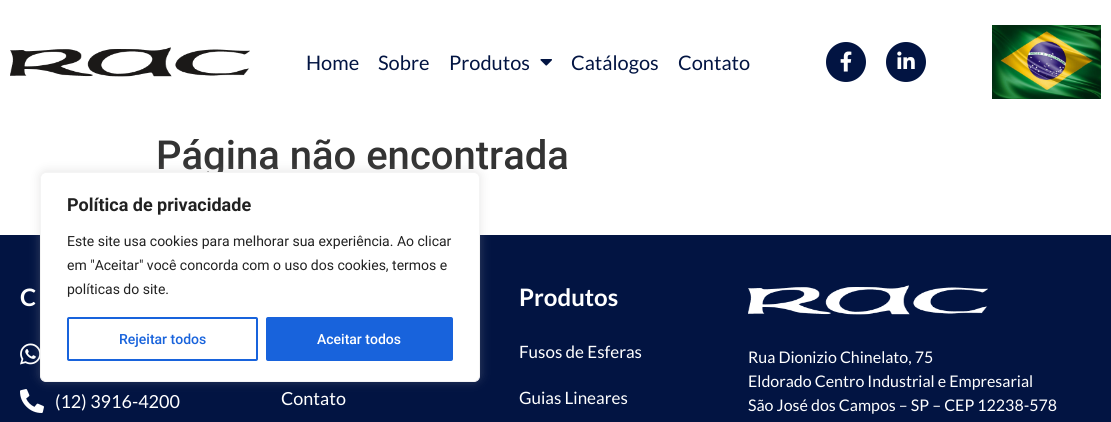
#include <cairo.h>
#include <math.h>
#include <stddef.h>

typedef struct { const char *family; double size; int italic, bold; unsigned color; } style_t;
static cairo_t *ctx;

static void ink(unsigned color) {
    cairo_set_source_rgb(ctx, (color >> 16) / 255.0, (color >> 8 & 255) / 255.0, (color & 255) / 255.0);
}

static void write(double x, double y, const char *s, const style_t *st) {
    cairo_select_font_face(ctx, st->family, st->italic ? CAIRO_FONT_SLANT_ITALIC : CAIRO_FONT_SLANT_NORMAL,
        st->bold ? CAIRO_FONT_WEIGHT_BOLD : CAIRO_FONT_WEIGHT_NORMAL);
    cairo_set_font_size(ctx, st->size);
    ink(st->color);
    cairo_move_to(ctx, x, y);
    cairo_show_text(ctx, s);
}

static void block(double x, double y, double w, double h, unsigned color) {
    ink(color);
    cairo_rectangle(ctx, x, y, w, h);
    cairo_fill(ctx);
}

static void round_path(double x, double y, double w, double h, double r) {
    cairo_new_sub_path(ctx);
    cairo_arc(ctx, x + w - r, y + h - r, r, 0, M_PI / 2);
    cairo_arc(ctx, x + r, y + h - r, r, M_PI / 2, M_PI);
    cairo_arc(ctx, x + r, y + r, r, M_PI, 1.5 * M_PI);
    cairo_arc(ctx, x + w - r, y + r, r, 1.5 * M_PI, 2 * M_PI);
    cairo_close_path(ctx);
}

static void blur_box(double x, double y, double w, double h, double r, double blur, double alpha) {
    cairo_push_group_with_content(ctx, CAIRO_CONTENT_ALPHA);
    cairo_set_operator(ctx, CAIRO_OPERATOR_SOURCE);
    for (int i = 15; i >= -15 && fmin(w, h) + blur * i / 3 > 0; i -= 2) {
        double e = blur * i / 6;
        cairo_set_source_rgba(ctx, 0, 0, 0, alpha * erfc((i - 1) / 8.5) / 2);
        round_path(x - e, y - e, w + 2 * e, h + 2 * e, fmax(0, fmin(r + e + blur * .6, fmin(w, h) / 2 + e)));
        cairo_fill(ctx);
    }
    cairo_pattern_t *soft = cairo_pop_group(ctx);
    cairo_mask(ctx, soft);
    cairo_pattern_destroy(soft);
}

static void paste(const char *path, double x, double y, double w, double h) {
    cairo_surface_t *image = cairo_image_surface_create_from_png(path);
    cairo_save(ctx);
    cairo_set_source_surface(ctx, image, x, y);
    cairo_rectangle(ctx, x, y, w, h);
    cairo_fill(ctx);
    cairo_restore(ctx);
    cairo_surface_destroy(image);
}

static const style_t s1 = {"Lato", 20, 0, 0, 0x021442};
static const style_t s2 = {"Roboto Medium", 40, 0, 0, 0x333333};
static const style_t s3 = {"Roboto", 18, 0, 1, 0x212121};
static const style_t s4 = {"Roboto", 14, 0, 0, 0x212121};
static const style_t s5 = {"Roboto Medium", 14, 0, 0, 0x1863dc};
static const style_t s6 = {"Roboto Medium", 14, 0, 0, 0xffffff};
static const style_t s7 = {"Lato", 24, 0, 1, 0xffffff};
static const style_t s8 = {"Lato", 18, 0, 0, 0xffffff};
static const style_t s9 = {"Lato", 17, 0, 0, 0xffffff};
static const style_t s10 = {"Lato", 16, 0, 0, 0xffffff};

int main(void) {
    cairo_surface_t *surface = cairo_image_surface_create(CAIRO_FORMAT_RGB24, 1111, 422);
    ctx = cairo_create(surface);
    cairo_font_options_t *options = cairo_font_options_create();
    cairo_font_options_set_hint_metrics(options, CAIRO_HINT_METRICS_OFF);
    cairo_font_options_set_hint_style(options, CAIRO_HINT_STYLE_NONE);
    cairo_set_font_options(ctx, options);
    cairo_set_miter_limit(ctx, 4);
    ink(0xffffff);
    cairo_paint(ctx);
    paste("pic1.png", 10, 47, 240, 30);
    write(306, 70, "Home", &s1);
    write(378, 70, "Sobre", &s1);
    write(449, 70, "Produtos", &s1);
    paste("pic2.png", 540, 59, 12, 7);
    write(571, 70, "Catálogos", &s1);
    write(678, 70, "Contato", &s1);
    cairo_new_path(ctx);
    cairo_arc(ctx, 846, 62, 20, 0, 2 * M_PI);
    cairo_fill(ctx);
    paste("pic3.png", 840, 51, 12, 21);
    cairo_arc(ctx, 906, 62, 20, 0, 2 * M_PI);
    cairo_fill(ctx);
    paste("pic4.png", 897, 51, 18, 18);
    paste("pic5.png", 992, 25, 109, 74);
    write(156, 169, "Página não encontrada", &s2);
    block(0, 235, 1111, 187, 0x021442);
    paste("pic6.png", 20, 343, 20, 22);
    paste("pic7.png", 20, 389, 24, 24);
    ink(0xacabab);
    blur_box(40, 171, 440, 210, 6, 5, 0.3);
    ink(0xffffff);
    round_path(40.5, 172.5, 439, 209, 5.5);
    cairo_fill_preserve(ctx);
    ink(0xf4f4f4);
    cairo_set_line_width(ctx, 1);
    cairo_stroke(ctx);
    write(67, 211, "Política de privacidade", &s3);
    write(67, 246, "Este site usa cookies para melhorar sua experiência. Ao clicar", &s4);
    write(67, 270, "em \"Aceitar\" você concorda com o uso dos cookies, termos e", &s4);
    write(67, 294, "políticas do site.", &s4);
    round_path(68, 318, 189, 42, 1);
    ink(0x1863dc);
    cairo_set_line_width(ctx, 2);
    cairo_stroke(ctx);
    write(119, 344, "Rejeitar todos", &s5);
    round_path(267, 318, 185, 42, 1);
    cairo_fill_preserve(ctx);
    cairo_stroke(ctx);
    write(317, 344, "Aceitar todos", &s6);
    write(20, 306, "C", &s7);
    write(55, 408, "(12) 3916-4200", &s8);
    write(281, 405, "Contato", &s8);
    write(519, 306, "Produtos", &s7);
    write(519, 358, "Fusos de Esferas", &s9);
    write(519, 404, "Guias Lineares", &s9);
    paste("pic8.png", 748, 285, 240, 30);
    write(748, 363, "Rua Dionizio Chinelato, 75", &s10);
    write(748, 387, "Eldorado Centro Industrial e Empresarial", &s10);
    write(748, 411, "São José dos Campos – SP – CEP 12238-578", &s10);
    cairo_surface_write_to_png(surface, "screenshot.png");
    cairo_font_options_destroy(options);
    cairo_destroy(ctx);
    cairo_surface_destroy(surface);
    return 0;
}
